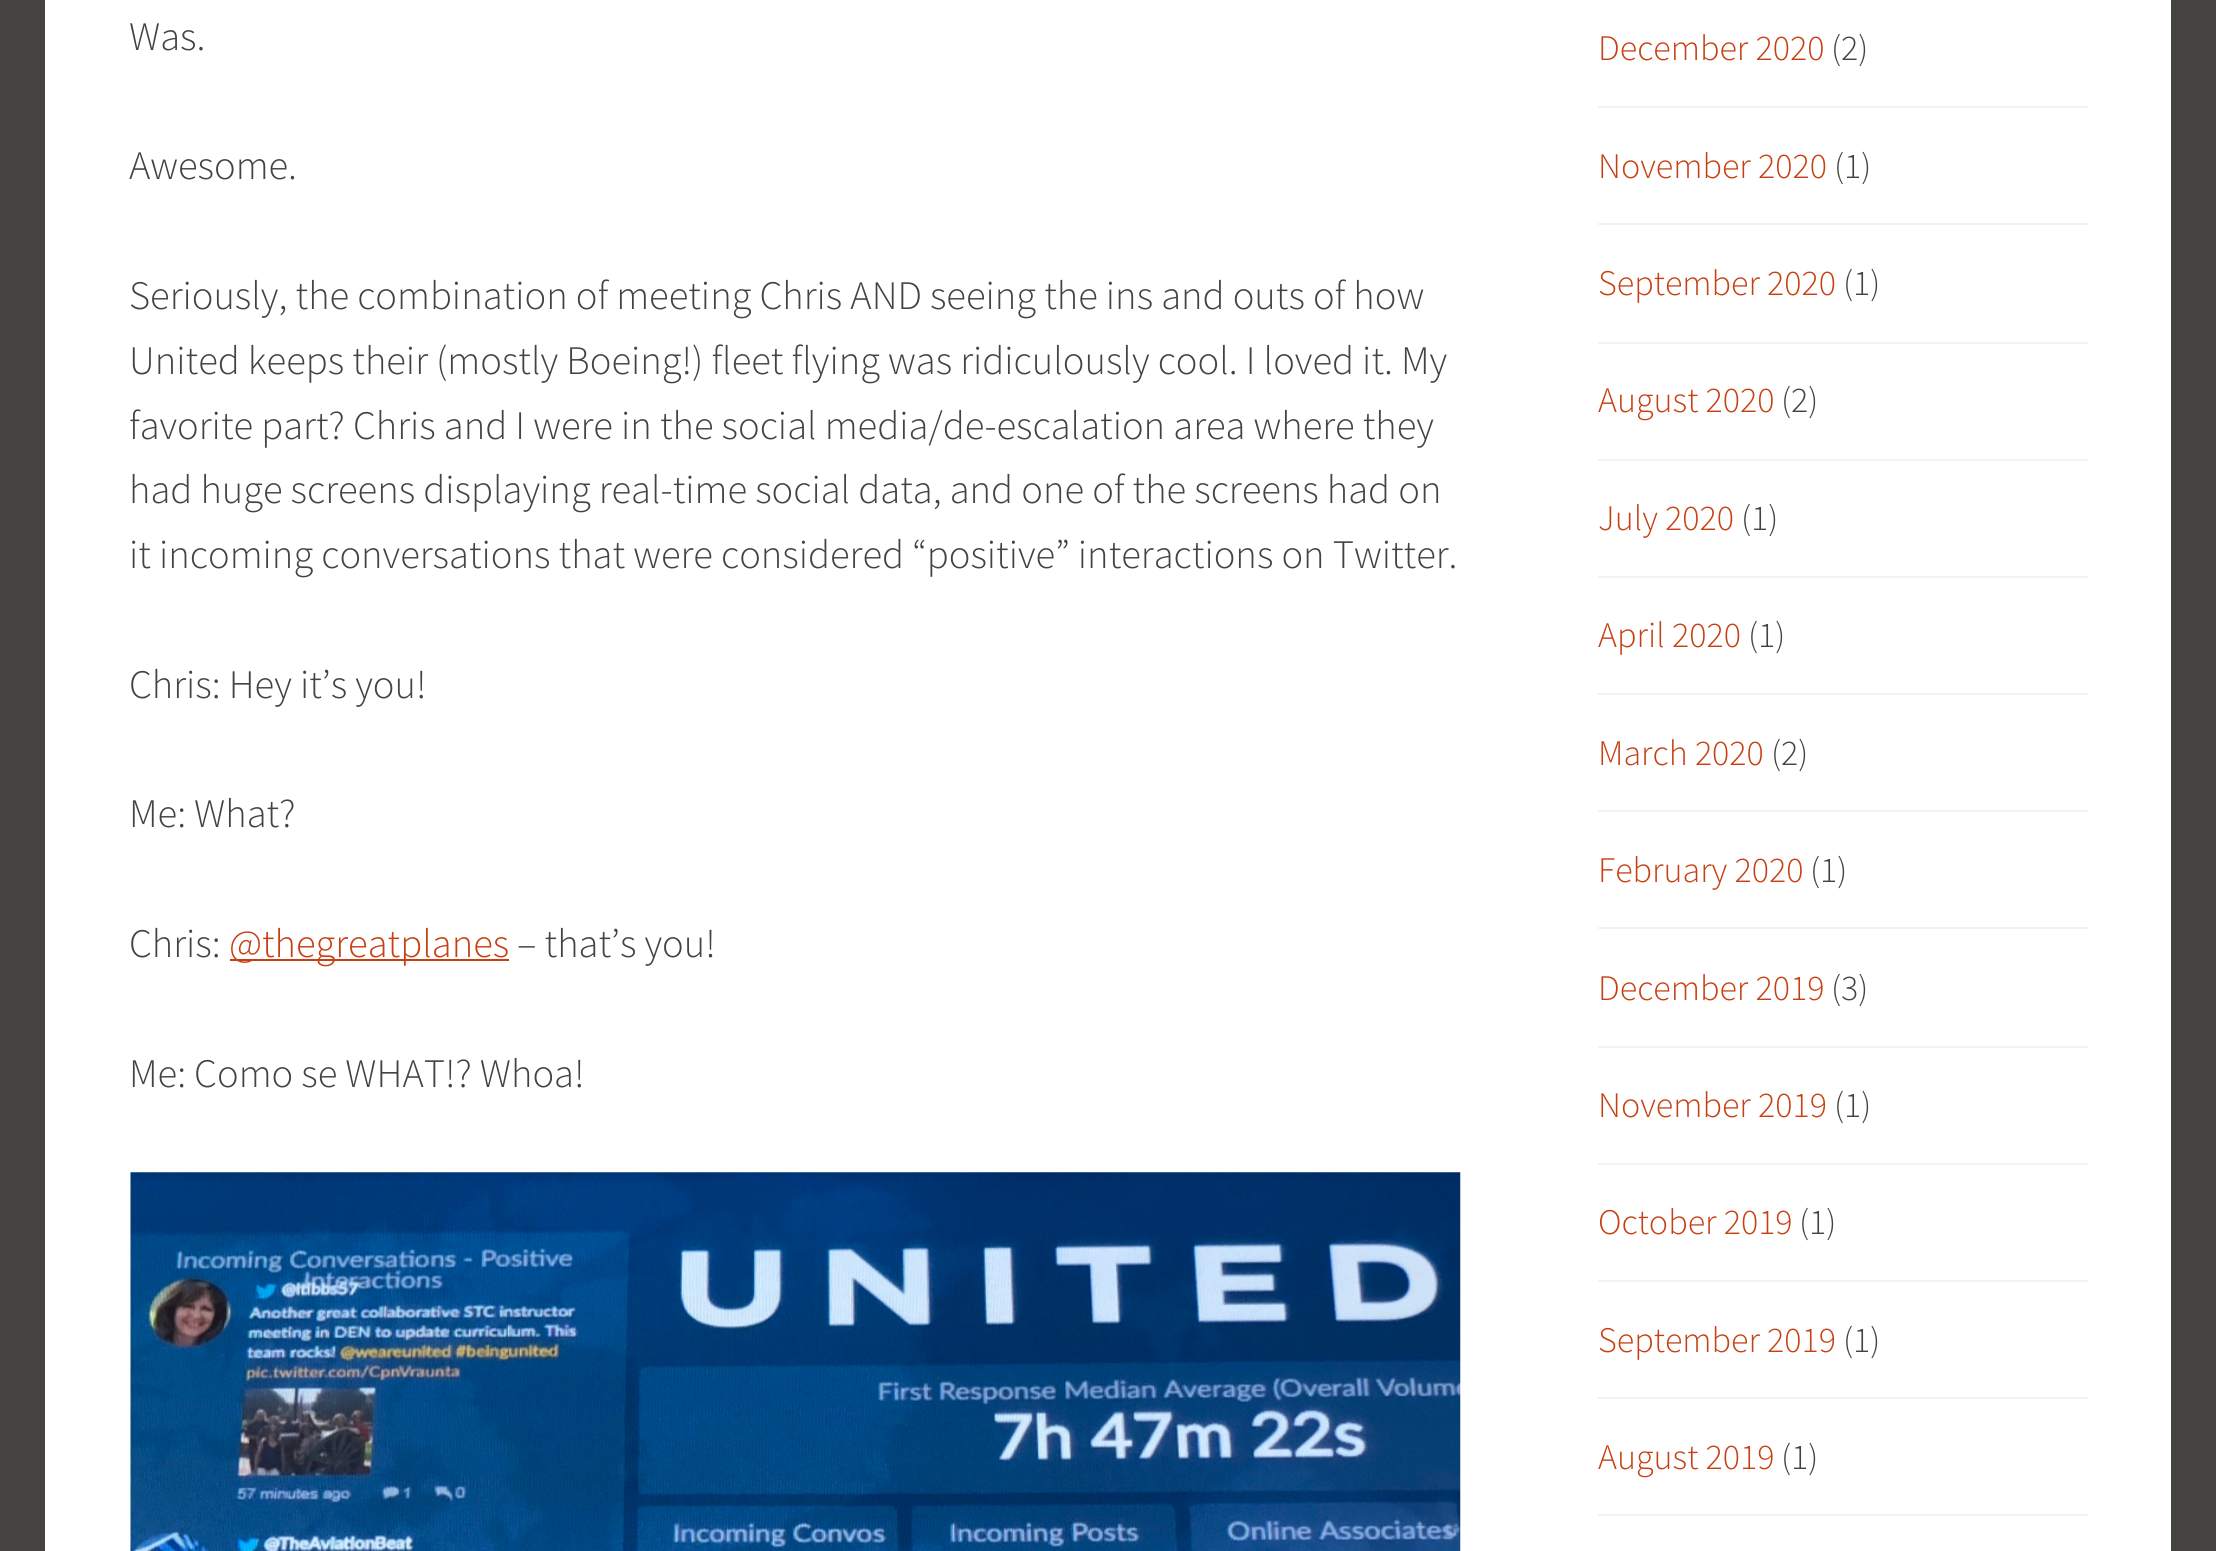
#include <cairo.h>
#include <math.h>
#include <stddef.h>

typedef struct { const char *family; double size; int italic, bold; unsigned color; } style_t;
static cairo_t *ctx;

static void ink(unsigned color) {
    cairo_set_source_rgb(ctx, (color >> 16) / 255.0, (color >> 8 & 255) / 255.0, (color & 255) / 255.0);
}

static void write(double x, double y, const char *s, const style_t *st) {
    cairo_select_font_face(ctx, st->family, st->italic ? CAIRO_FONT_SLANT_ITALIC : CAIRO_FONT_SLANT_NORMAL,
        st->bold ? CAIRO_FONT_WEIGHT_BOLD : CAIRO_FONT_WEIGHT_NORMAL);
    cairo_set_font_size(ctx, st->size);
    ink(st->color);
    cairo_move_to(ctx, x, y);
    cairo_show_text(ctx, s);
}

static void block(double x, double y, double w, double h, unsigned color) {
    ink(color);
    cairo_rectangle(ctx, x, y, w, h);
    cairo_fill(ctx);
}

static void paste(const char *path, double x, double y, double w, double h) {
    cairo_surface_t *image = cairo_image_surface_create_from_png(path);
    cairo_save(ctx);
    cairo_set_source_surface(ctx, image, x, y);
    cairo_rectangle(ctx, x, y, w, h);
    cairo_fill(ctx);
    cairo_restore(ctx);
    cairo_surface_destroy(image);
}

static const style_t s1 = {"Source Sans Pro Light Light", 40.5, 0, 0, 0x444340};
static const style_t s2 = {"Source Sans Pro Light Light", 40.5, 0, 0, 0xc74013};
static const style_t s3 = {"Source Sans Pro Light Light", 36, 0, 0, 0xc74013};
static const style_t s4 = {"Source Sans Pro Light Light", 36, 0, 0, 0x444340};

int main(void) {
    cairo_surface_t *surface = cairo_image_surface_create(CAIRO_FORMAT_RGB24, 2216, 1551);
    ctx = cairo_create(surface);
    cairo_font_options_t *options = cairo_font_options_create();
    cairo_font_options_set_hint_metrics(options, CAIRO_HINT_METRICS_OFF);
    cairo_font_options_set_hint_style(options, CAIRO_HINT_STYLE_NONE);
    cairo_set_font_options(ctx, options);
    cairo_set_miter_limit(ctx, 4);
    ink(0x444340);
    cairo_paint(ctx);
    block(45, 0, 2126, 1551, 0xffffff);
    write(129, 50, "Was.", &s1);
    write(129, 179, "Awesome.", &s1);
    write(129, 309, "Seriously, the combination of meeting Chris AND seeing the ins and outs of how", &s1);
    write(129, 374, "United keeps their (mostly Boeing!) fleet flying was ridiculously cool. I loved it. My", &s1);
    write(129, 439, "favorite part? Chris and I were in the social media/de-escalation area where they", &s1);
    write(129, 503, "had huge screens displaying real-time social data, and one of the screens had on", &s1);
    write(129, 568, "it incoming conversations that were considered “positive” interactions on Twitter.", &s1);
    write(129, 698, "Chris: Hey it’s you!", &s1);
    write(129, 827, "Me: What?", &s1);
    write(129, 957, "Chris:", &s1);
    block(230, 959, 279, 2, 0xc74013);
    write(229, 957, "@thegreatplanes", &s2);
    write(517, 957, "– that’s you!", &s1);
    write(129, 1087, "Me: Como se WHAT!? Whoa!", &s1);
    paste("pic1.png", 130, 1172, 1331, 379);
    write(1598, 60, "December 2020", &s3);
    write(1831, 60, "(2)", &s4);
    block(1598, 106, 490, 2, 0xf2f2f2);
    write(1598, 178, "November 2020", &s3);
    write(1834, 178, "(1)", &s4);
    block(1598, 223, 490, 2, 0xf2f2f2);
    write(1598, 295, "September 2020", &s3);
    write(1843, 295, "(1)", &s4);
    block(1598, 342, 490, 2, 0xf2f2f2);
    write(1598, 412, "August 2020", &s3);
    write(1781, 412, "(2)", &s4);
    block(1598, 459, 490, 2, 0xf2f2f2);
    write(1598, 530, "July 2020", &s3);
    write(1741, 530, "(1)", &s4);
    block(1598, 576, 490, 2, 0xf2f2f2);
    write(1598, 647, "April 2020", &s3);
    write(1748, 647, "(1)", &s4);
    block(1598, 693, 490, 2, 0xf2f2f2);
    write(1598, 765, "March 2020", &s3);
    write(1771, 765, "(2)", &s4);
    block(1598, 810, 490, 2, 0xf2f2f2);
    write(1598, 882, "February 2020", &s3);
    write(1810, 882, "(1)", &s4);
    block(1598, 927, 490, 2, 0xf2f2f2);
    write(1598, 1000, "December 2019", &s3);
    write(1831, 1000, "(3)", &s4);
    block(1598, 1046, 490, 2, 0xf2f2f2);
    write(1598, 1117, "November 2019", &s3);
    write(1834, 1117, "(1)", &s4);
    block(1598, 1163, 490, 2, 0xf2f2f2);
    write(1598, 1234, "October 2019", &s3);
    write(1799, 1234, "(1)", &s4);
    block(1598, 1280, 490, 2, 0xf2f2f2);
    write(1598, 1352, "September 2019", &s3);
    write(1843, 1352, "(1)", &s4);
    block(1598, 1397, 490, 2, 0xf2f2f2);
    write(1598, 1469, "August 2019", &s3);
    write(1781, 1469, "(1)", &s4);
    block(1598, 1514, 490, 2, 0xf2f2f2);
    cairo_surface_write_to_png(surface, "screenshot.png");
    cairo_font_options_destroy(options);
    cairo_destroy(ctx);
    cairo_surface_destroy(surface);
    return 0;
}
